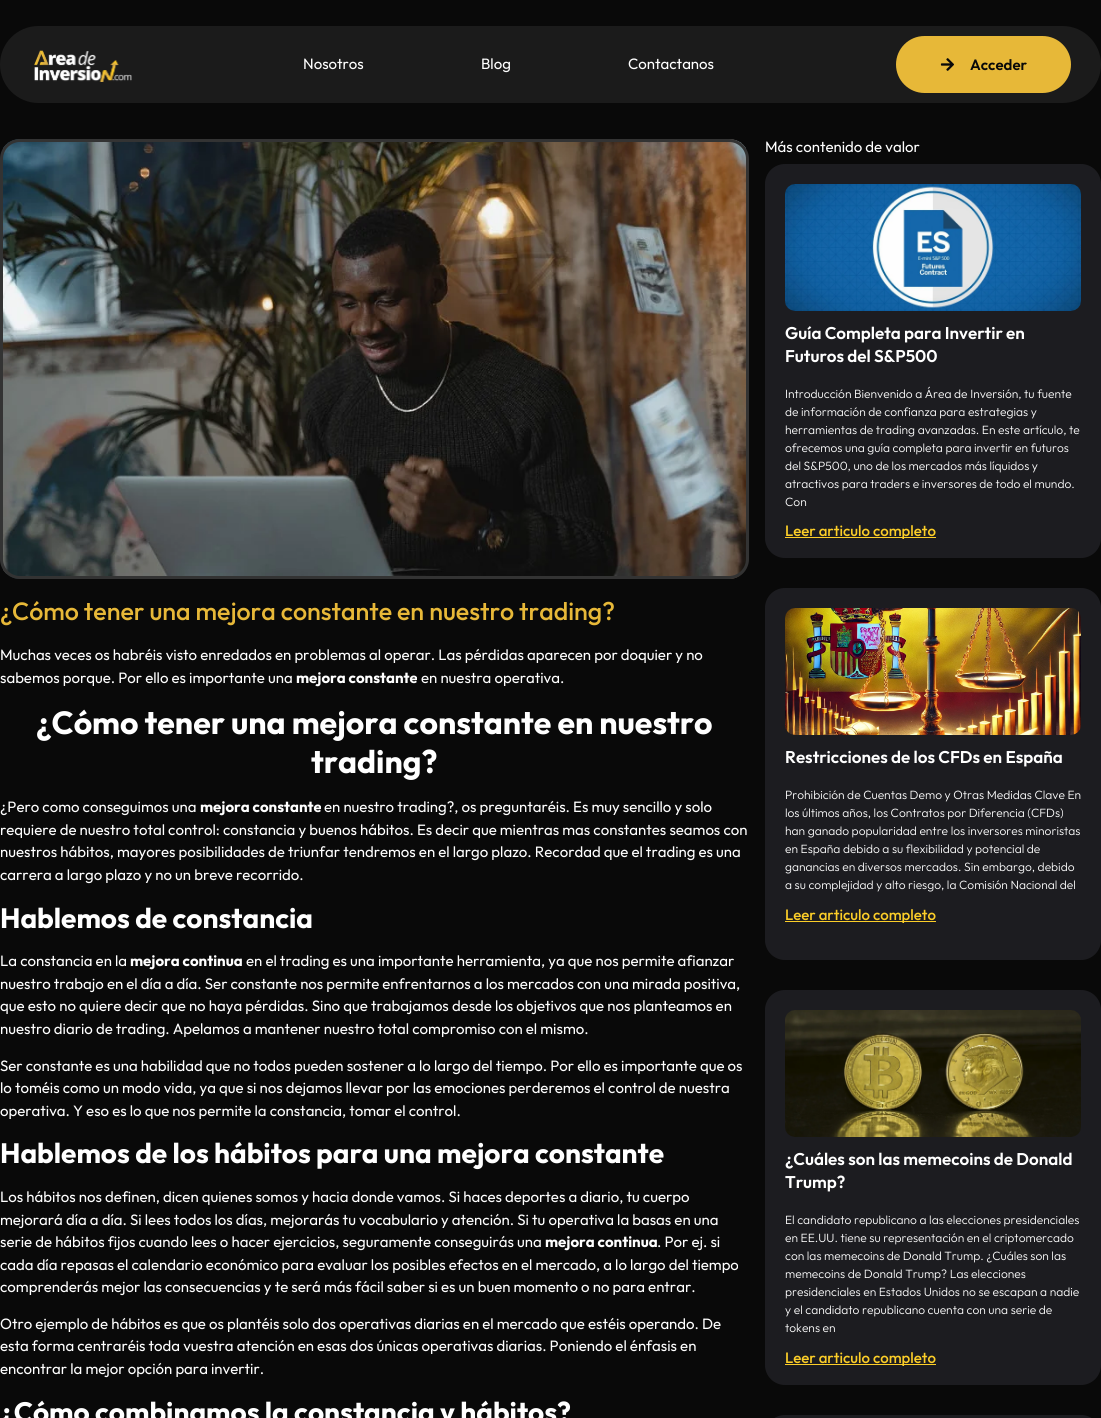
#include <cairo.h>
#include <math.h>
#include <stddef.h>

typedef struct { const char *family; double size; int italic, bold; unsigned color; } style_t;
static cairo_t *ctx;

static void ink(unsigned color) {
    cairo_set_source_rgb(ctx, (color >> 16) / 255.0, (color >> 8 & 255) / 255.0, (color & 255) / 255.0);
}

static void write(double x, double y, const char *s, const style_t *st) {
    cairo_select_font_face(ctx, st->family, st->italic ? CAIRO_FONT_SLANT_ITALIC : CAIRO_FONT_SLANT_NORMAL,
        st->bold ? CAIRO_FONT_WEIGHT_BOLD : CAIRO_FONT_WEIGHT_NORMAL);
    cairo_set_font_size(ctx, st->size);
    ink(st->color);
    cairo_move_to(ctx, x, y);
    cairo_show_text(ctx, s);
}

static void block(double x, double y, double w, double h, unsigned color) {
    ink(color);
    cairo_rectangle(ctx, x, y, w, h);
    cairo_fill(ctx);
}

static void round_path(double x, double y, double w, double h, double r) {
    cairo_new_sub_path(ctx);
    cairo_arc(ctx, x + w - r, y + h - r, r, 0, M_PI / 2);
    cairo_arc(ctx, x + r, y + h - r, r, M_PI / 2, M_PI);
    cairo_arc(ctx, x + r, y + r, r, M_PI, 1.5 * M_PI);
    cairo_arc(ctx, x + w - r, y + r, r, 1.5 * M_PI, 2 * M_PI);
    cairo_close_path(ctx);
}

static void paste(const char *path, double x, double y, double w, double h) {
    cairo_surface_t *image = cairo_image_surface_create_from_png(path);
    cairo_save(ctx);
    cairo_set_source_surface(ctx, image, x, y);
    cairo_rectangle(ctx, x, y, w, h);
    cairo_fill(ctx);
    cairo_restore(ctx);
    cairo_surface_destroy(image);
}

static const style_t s1 = {"Outfit", 15, 0, 0, 0xffffff};
static const style_t s2 = {"Outfit SemiBold", 15, 0, 0, 0x090909};
static const style_t s3 = {"Outfit Medium", 25, 0, 0, 0xe7b838};
static const style_t s4 = {"Outfit", 15, 0, 1, 0xffffff};
static const style_t s5 = {"Outfit", 32, 0, 1, 0xffffff};
static const style_t s6 = {"Outfit", 28, 0, 1, 0xffffff};
static const style_t s7 = {"Outfit SemiBold", 17, 0, 0, 0xffffff};
static const style_t s8 = {"Outfit Light", 12, 0, 0, 0xffffff};
static const style_t s9 = {"Outfit Medium", 15, 0, 0, 0xfcce28};

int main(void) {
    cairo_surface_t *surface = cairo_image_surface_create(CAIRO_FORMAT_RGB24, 1101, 1418);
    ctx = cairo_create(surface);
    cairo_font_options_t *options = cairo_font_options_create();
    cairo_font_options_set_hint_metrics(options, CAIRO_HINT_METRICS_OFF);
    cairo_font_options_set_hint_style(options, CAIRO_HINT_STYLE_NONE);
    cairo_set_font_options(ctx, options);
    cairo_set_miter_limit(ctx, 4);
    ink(0x090909);
    cairo_paint(ctx);
    ink(0x1b1b1b);
    round_path(0, 26, 1101, 77, 38.5);
    cairo_fill(ctx);
    paste("pic1.png", 34, 50, 98, 32);
    write(303, 69, "Nosotros", &s1);
    write(481, 69, "Blog", &s1);
    write(628, 69, "Contactanos", &s1);
    ink(0xe7b838);
    round_path(896, 36, 175, 57, 28.5);
    cairo_fill(ctx);
    paste("pic2.png", 940, 58, 14, 13);
    write(970, 70, "Acceder", &s2);
    paste("pic3.png", 3, 139, 743, 440);
    round_path(1.5, 140.5, 746, 437, 18.5);
    ink(0x333333);
    cairo_set_line_width(ctx, 3);
    cairo_stroke(ctx);
    write(0, 620, "¿Cómo tener una mejora constante en nuestro trading?", &s3);
    write(0, 660, "Muchas veces os habréis visto enredados en problemas al operar. Las pérdidas aparecen por doquier y no", &s1);
    write(0, 683, "sabemos porque. Por ello es importante una", &s1);
    write(296, 683, "mejora constante", &s4);
    write(421, 683, "en nuestra operativa.", &s1);
    write(36, 734, "¿Cómo tener una mejora constante en nuestro", &s5);
    write(311, 773, "trading?", &s5);
    write(0, 812, "¿Pero como conseguimos una", &s1);
    write(200, 812, "mejora constante", &s4);
    write(324, 812, "en nuestro trading?, os preguntaréis. Es muy sencillo y solo", &s1);
    write(0, 835, "requiere de nuestro total control: constancia y buenos hábitos. Es decir que mientras mas constantes seamos con", &s1);
    write(0, 857, "nuestros hábitos, mayores posibilidades de triunfar tendremos en el largo plazo. Recordad que el trading es una", &s1);
    write(0, 880, "carrera a largo plazo y no un breve recorrido.", &s1);
    write(0, 928, "Hablemos de constancia", &s6);
    write(0, 966, "La constancia en la", &s1);
    write(130, 966, "mejora continua", &s4);
    write(246, 966, "en el trading es una importante herramienta, ya que nos permite afianzar", &s1);
    write(0, 989, "nuestro trabajo en el día a día. Ser constante nos permite enfrentarnos a los mercados con una mirada positiva,", &s1);
    write(0, 1011, "que esto no quiere decir que no haya pérdidas. Sino que trabajamos desde los objetivos que nos planteamos en", &s1);
    write(0, 1034, "nuestro diario de trading. Apelamos a mantener nuestro total compromiso con el mismo.", &s1);
    write(0, 1071, "Ser constante es una habilidad que no todos pueden sostener a lo largo del tiempo. Por ello es importante que os", &s1);
    write(0, 1093, "lo toméis como un modo vida, ya que si nos dejamos llevar por las emociones perderemos el control de nuestra", &s1);
    write(0, 1116, "operativa. Y eso es lo que nos permite la constancia, tomar el control.", &s1);
    write(0, 1163, "Hablemos de los hábitos para una mejora constante", &s6);
    write(0, 1202, "Los hábitos nos definen, dicen quienes somos y hacia donde vamos. Si haces deportes a diario, tu cuerpo", &s1);
    write(0, 1225, "mejorará día a día. Si lees todos los días, mejorarás tu vocabulario y atención. Si tu operativa la basas en una", &s1);
    write(0, 1247, "serie de hábitos fijos cuando lees o hacer ejercicios, seguramente conseguirás una", &s1);
    write(545, 1247, "mejora continua", &s4);
    write(657, 1247, ". Por ej. si", &s1);
    write(0, 1270, "cada día repasas el calendario económico para evaluar los posibles efectos en el mercado, a lo largo del tiempo", &s1);
    write(0, 1292, "comprenderás mejor las consecuencias y te será más fácil saber si es un buen momento o no para entrar.", &s1);
    write(0, 1329, "Otro ejemplo de hábitos es que os plantéis solo dos operativas diarias en el mercado que estéis operando. De", &s1);
    write(0, 1351, "esta forma centraréis toda vuestra atención en esas dos únicas operativas diarias. Poniendo el énfasis en", &s1);
    write(0, 1374, "encontrar la mejor opción para invertir.", &s1);
    write(0, 1422, "¿Cómo combinamos la constancia y hábitos?", &s6);
    write(765, 152, "Más contenido de valor", &s1);
    ink(0x1c1c20);
    round_path(765, 164, 336, 394, 20);
    cairo_fill(ctx);
    paste("pic4.png", 785, 184, 296, 127);
    write(785, 339, "Guía Completa para Invertir en", &s7);
    write(785, 362, "Futuros del S&P500", &s7);
    write(785, 398, "Introducción Bienvenido a Área de Inversión, tu fuente", &s8);
    write(785, 416, "de información de confianza para estrategias y", &s8);
    write(785, 434, "herramientas de trading avanzadas. En este artículo, te", &s8);
    write(785, 452, "ofrecemos una guía completa para invertir en futuros", &s8);
    write(785, 470, "del S&P500, uno de los mercados más líquidos y", &s8);
    write(785, 488, "atractivos para traders e inversores de todo el mundo.", &s8);
    write(785, 506, "Con", &s8);
    block(785, 537, 151, 1, 0xfcce28);
    write(785, 536, "Leer articulo completo", &s9);
    ink(0x1c1c20);
    round_path(765, 588, 336, 372, 20);
    cairo_fill(ctx);
    paste("pic5.png", 785, 608, 296, 127);
    write(785, 763, "Restricciones de los CFDs en España", &s7);
    write(785, 799, "Prohibición de Cuentas Demo y Otras Medidas Clave En", &s8);
    write(785, 817, "los últimos años, los Contratos por Diferencia (CFDs)", &s8);
    write(785, 835, "han ganado popularidad entre los inversores minoristas", &s8);
    write(785, 853, "en España debido a su flexibilidad y potencial de", &s8);
    write(785, 871, "ganancias en diversos mercados. Sin embargo, debido", &s8);
    write(785, 889, "a su complejidad y alto riesgo, la Comisión Nacional del", &s8);
    block(785, 921, 151, 1, 0xfcce28);
    write(785, 920, "Leer articulo completo", &s9);
    ink(0x1c1c20);
    round_path(765, 990, 336, 395, 20);
    cairo_fill(ctx);
    paste("pic6.png", 785, 1010, 296, 127);
    write(785, 1165, "¿Cuáles son las memecoins de Donald", &s7);
    write(785, 1188, "Trump?", &s7);
    write(785, 1224, "El candidato republicano a las elecciones presidenciales", &s8);
    write(785, 1242, "en EE.UU. tiene su representación en el criptomercado", &s8);
    write(785, 1260, "con las memecoins de Donald Trump. ¿Cuáles son las", &s8);
    write(785, 1278, "memecoins de Donald Trump? Las elecciones", &s8);
    write(785, 1296, "presidenciales en Estados Unidos no se escapan a nadie", &s8);
    write(785, 1314, "y el candidato republicano cuenta con una serie de", &s8);
    write(785, 1332, "tokens en", &s8);
    block(785, 1364, 151, 1, 0xfcce28);
    write(785, 1363, "Leer articulo completo", &s9);
    ink(0x1c1c20);
    round_path(765, 1415, 336, 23, 20);
    cairo_fill(ctx);
    cairo_surface_write_to_png(surface, "screenshot.png");
    cairo_font_options_destroy(options);
    cairo_destroy(ctx);
    cairo_surface_destroy(surface);
    return 0;
}
